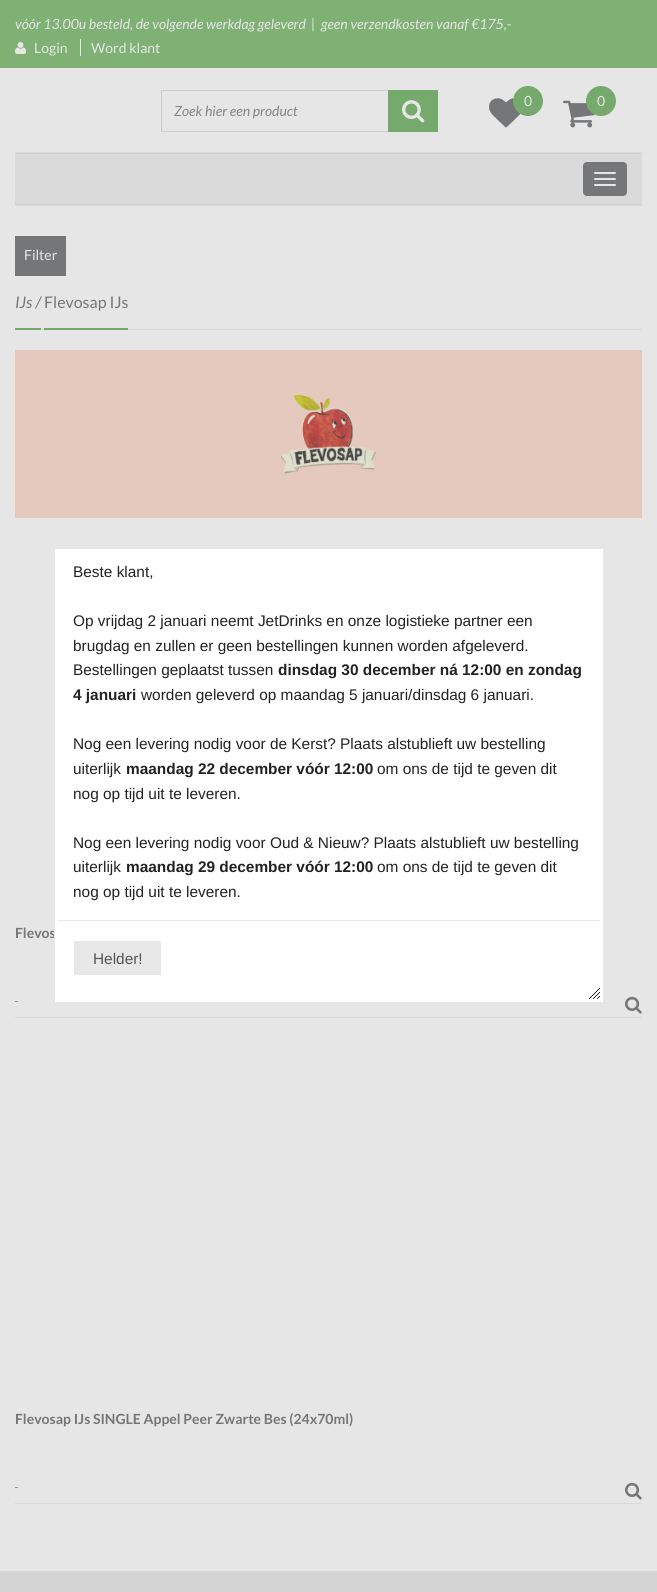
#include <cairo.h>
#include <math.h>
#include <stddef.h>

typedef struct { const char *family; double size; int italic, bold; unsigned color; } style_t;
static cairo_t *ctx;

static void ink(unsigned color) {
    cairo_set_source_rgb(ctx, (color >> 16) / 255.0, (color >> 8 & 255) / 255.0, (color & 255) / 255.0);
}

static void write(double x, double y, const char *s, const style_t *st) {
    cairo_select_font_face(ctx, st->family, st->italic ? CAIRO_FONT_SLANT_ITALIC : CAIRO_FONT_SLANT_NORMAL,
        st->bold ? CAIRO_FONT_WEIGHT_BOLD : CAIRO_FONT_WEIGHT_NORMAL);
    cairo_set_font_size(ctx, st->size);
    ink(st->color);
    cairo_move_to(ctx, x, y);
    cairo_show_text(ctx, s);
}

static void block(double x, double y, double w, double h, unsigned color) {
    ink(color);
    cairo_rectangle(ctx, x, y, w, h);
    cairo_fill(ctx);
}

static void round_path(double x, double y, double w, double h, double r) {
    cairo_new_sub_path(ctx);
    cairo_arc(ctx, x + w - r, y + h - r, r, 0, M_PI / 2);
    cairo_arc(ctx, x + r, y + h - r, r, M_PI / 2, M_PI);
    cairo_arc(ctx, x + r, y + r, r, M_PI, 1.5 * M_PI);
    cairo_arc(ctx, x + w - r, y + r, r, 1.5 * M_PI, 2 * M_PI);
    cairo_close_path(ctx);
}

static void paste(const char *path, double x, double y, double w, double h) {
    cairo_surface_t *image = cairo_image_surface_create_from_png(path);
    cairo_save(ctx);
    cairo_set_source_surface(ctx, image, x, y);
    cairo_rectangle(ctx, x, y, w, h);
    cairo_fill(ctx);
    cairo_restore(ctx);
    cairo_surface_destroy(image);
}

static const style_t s1 = {"Lato", 14, 1, 0, 0xe6e6e6};
static const style_t s2 = {"Lato", 14, 0, 0, 0xe6e6e6};
static const style_t s3 = {"Lato", 14, 1, 0, 0x858585};
static const style_t s4 = {"Lato", 16, 1, 0, 0x757678};
static const style_t s5 = {"Lato", 16, 0, 0, 0x757678};
static const style_t s6 = {"Lato", 14, 0, 1, 0x757678};
static const style_t s7 = {"Liberation Sans", 15.4, 0, 0, 0x222222};
static const style_t s8 = {"Liberation Sans", 15.4, 0, 1, 0x222222};
static const style_t s9 = {"Liberation Sans", 15.4, 0, 0, 0x555555};

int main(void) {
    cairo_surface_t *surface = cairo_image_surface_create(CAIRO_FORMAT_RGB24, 657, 1592);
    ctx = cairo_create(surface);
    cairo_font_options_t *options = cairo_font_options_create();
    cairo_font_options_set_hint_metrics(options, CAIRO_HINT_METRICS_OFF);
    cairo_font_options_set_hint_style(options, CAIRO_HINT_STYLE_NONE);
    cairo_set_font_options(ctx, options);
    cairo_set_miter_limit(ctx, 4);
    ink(0xe6e6e6);
    cairo_paint(ctx);
    block(0, 0, 657, 68, 0x7fb074);
    write(15, 29, "vóór 13.00u besteld, de volgende werkdag geleverd  |  geen verzendkosten vanaf €175,-", &s1);
    paste("pic1.png", 15, 42, 11, 12);
    write(34, 53, "Login", &s2);
    write(91, 53, "Word klant", &s2);
    block(80, 39, 1, 17, 0xe6e6e6);
    paste("pic2.png", 489, 98, 32, 30);
    ink(0x76aa6c);
    cairo_arc(ctx, 528, 101, 15, 0, 2 * M_PI);
    cairo_fill(ctx);
    write(524, 106, "0", &s2);
    paste("pic3.png", 563, 100, 32, 28);
    ink(0x76aa6c);
    cairo_arc(ctx, 601, 101, 15, 0, 2 * M_PI);
    cairo_fill(ctx);
    write(597, 106, "0", &s2);
    cairo_rectangle(ctx, 161.5, 90.5, 261, 41);
    ink(0xcdcdcd);
    cairo_set_line_width(ctx, 1);
    cairo_stroke(ctx);
    write(174, 116, "Zoek hier een product", &s3);
    block(388, 90, 50, 42, 0x76aa6c);
    paste("pic4.png", 402, 100, 23, 23);
    block(15, 152, 627, 1, 0xdadada);
    block(15, 205, 627, 1, 0xdadada);
    block(15, 154, 627, 50, 0xdadada);
    block(15, 153, 627, 1, 0xd1d1d1);
    block(15, 204, 627, 1, 0xd1d1d1);
    ink(0x757678);
    round_path(583.5, 162.5, 43, 33, 3.5);
    cairo_fill_preserve(ctx);
    cairo_stroke(ctx);
    ink(0xe6e6e6);
    round_path(594, 172, 22, 2, 1);
    cairo_fill(ctx);
    round_path(594, 178, 22, 2, 1);
    cairo_fill(ctx);
    round_path(594, 184, 22, 2, 1);
    cairo_fill(ctx);
    block(15, 236, 51, 40, 0x757678);
    write(24, 260, "Filter", &s2);
    block(15, 328, 26, 2, 0x76aa6c);
    write(15, 308, "IJs /", &s4);
    block(41, 329, 601, 1, 0xdadada);
    block(44, 328, 84, 2, 0x76aa6c);
    write(44, 308, "Flevosap IJs", &s5);
    paste("pic5.png", 15, 350, 627, 168);
    write(15, 938, "Flevos", &s6);
    block(15, 1017, 627, 1, 0xdadada);
    block(15, 1001, 3, 1, 0x76aa6c);
    paste("pic6.png", 625, 996, 17, 18);
    write(15, 1424, "Flevosap IJs SINGLE Appel Peer Zwarte Bes (24x70ml)", &s6);
    block(15, 1503, 627, 1, 0xdadada);
    block(15, 1487, 3, 1, 0x76aa6c);
    paste("pic6.png", 625, 1482, 17, 18);
    ink(0xffffff);
    cairo_rectangle(ctx, 54.5, 548.5, 549, 454);
    cairo_fill_preserve(ctx);
    ink(0xe8e8e8);
    cairo_stroke(ctx);
    write(73, 577, "Beste klant,", &s7);
    write(73, 626, "Op vrijdag 2 januari neemt JetDrinks en onze logistieke partner een", &s7);
    write(73, 651, "brugdag en zullen er geen bestellingen kunnen worden afgeleverd.", &s7);
    write(73, 675, "Bestellingen geplaatst tussen", &s7);
    write(278, 675, "dinsdag 30 december ná 12:00 en zondag", &s8);
    write(73, 700, "4 januari", &s8);
    write(141, 700, "worden geleverd op maandag 5 januari/dinsdag 6 januari.", &s7);
    write(73, 749, "Nog een levering nodig voor de Kerst? Plaats alstublieft uw bestelling", &s7);
    write(73, 774, "uiterlijk", &s7);
    write(126, 774, "maandag 22 december vóór 12:00", &s8);
    write(377, 774, "om ons de tijd te geven dit", &s7);
    write(73, 799, "nog op tijd uit te leveren.", &s7);
    write(73, 848, "Nog een levering nodig voor Oud & Nieuw? Plaats alstublieft uw bestelling", &s7);
    write(73, 872, "uiterlijk", &s7);
    write(126, 872, "maandag 29 december vóór 12:00", &s8);
    write(377, 872, "om ons de tijd te geven dit", &s7);
    write(73, 897, "nog op tijd uit te leveren.", &s7);
    block(58, 920, 542, 1, 0xe8e8e8);
    block(74, 941, 87, 34, 0xe8e8e8);
    write(93, 964, "Helder!", &s9);
    paste("pic7.png", 589, 988, 11, 11);
    block(0, 1571, 657, 21, 0xd4d4d4);
    cairo_surface_write_to_png(surface, "screenshot.png");
    cairo_font_options_destroy(options);
    cairo_destroy(ctx);
    cairo_surface_destroy(surface);
    return 0;
}
